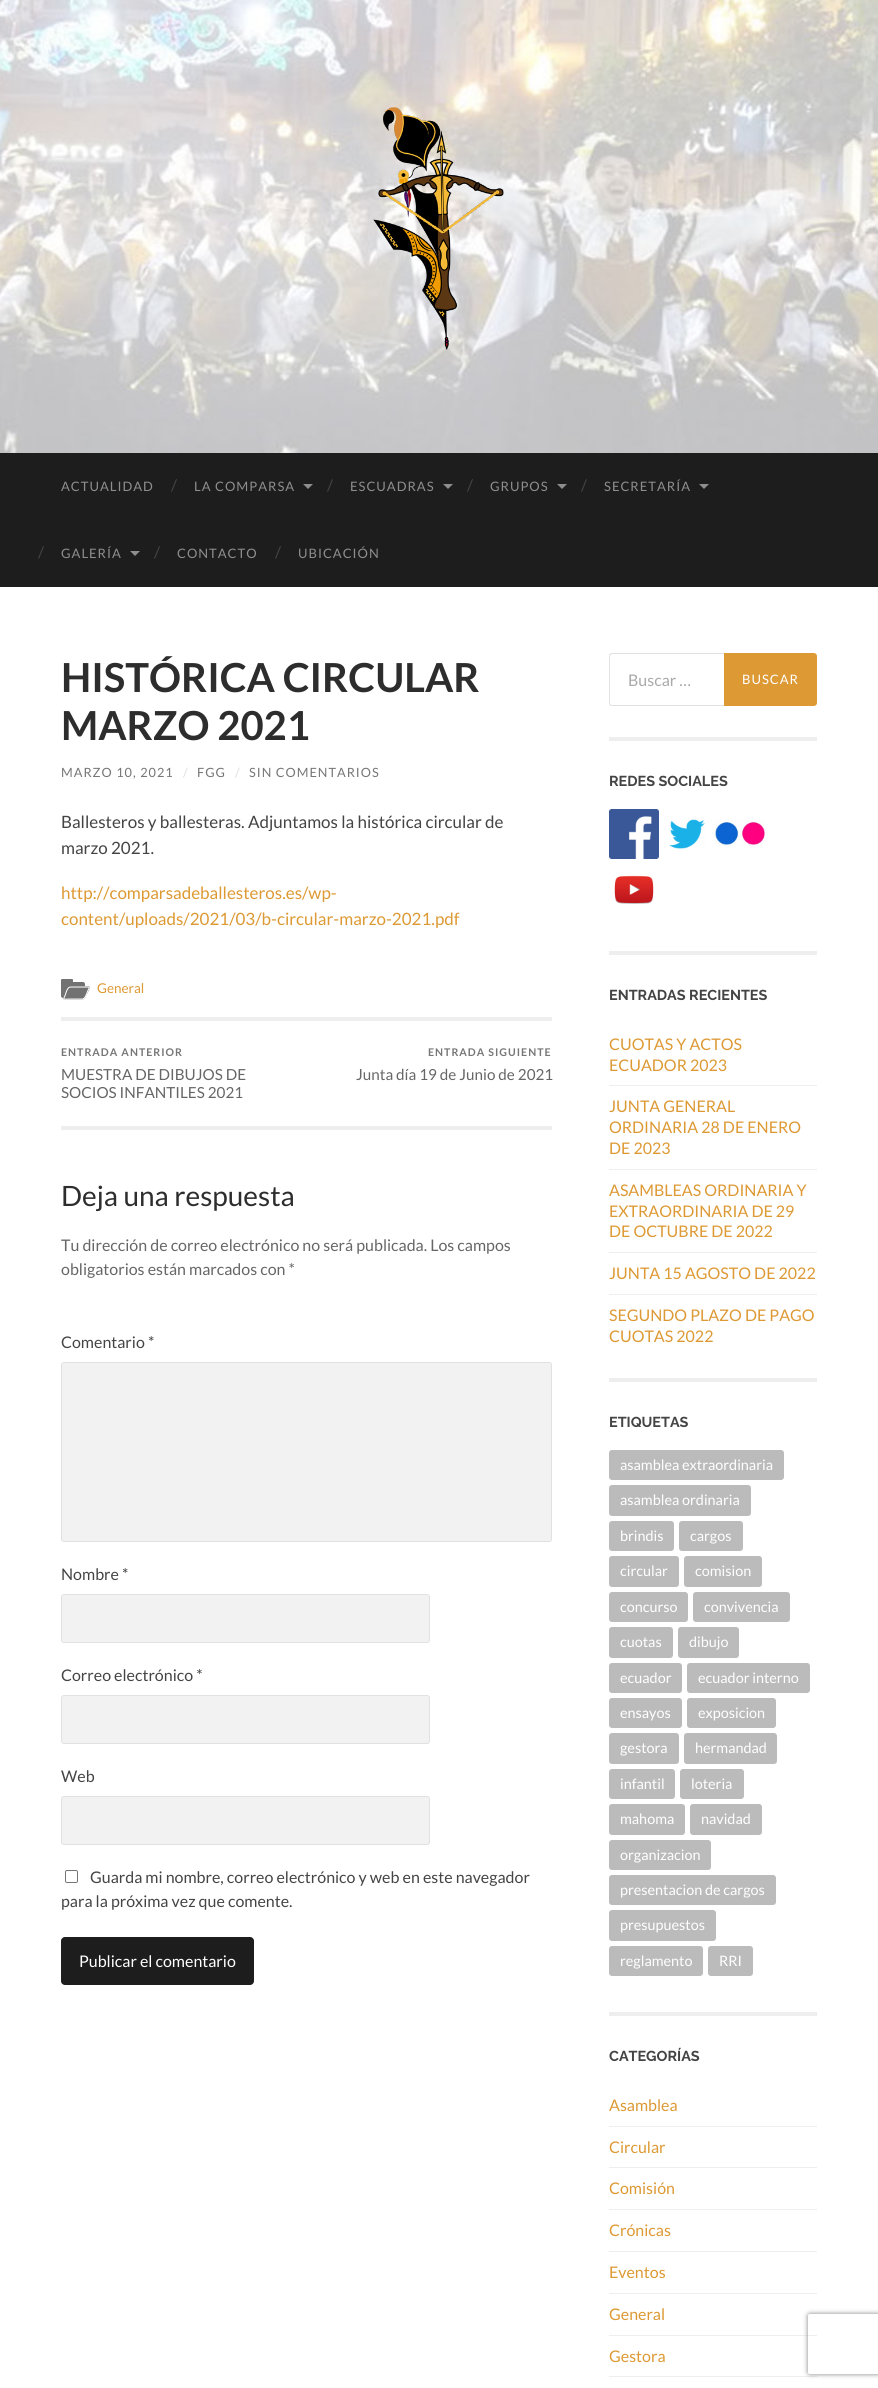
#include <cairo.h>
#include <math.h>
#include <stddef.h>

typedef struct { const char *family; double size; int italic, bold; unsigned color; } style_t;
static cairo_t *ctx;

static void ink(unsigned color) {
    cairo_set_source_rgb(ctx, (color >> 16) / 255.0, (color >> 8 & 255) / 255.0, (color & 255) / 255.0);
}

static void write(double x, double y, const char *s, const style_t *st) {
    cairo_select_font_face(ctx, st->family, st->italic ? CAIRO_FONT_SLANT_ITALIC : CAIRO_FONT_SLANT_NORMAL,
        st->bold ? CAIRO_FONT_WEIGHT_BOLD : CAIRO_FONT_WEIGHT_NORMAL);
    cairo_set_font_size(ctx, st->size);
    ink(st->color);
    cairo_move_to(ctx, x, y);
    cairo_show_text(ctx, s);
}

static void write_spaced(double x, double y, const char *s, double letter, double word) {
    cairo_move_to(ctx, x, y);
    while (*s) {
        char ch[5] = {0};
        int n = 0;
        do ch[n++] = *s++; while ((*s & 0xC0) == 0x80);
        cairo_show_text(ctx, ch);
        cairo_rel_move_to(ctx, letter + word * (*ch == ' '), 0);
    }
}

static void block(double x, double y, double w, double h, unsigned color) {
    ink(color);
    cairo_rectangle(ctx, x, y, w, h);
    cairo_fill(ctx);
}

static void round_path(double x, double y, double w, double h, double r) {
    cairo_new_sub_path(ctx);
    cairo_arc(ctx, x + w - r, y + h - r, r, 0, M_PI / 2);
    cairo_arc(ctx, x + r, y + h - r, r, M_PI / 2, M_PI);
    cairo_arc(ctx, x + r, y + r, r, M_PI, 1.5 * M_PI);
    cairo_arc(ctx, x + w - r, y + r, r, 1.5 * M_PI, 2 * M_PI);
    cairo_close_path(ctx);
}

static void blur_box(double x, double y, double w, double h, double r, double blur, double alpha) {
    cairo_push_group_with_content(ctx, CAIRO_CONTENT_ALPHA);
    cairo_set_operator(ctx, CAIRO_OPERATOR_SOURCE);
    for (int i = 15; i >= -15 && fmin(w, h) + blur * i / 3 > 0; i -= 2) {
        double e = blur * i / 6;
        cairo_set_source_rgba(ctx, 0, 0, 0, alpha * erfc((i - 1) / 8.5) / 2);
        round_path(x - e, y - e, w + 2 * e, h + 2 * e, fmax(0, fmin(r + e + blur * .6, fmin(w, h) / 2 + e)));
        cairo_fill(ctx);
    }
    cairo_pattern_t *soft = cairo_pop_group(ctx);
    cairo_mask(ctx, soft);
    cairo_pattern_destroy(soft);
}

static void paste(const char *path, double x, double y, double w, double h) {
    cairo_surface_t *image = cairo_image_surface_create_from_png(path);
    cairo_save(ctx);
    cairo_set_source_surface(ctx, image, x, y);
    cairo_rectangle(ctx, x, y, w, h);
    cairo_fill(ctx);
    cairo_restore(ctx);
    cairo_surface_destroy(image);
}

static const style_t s1 = {"Lato", 16, 0, 0, 0x444444};
static const style_t s2 = {"Lato", 40, 0, 1, 0x2d2d2d};
static const style_t s3 = {"Lato", 17, 0, 0, 0x444444};
static const style_t s4 = {"Lato", 17, 0, 0, 0xdd9933};
static const style_t s5 = {"Lato", 13.5, 0, 0, 0xdd9933};
static const style_t s6 = {"Lato", 15.25, 0, 0, 0x666666};
static const style_t s7 = {"Lato", 28, 0, 0, 0x2d2d2d};
static const style_t s8 = {"Lato", 16, 0, 0, 0x666666};
static const style_t s9 = {"Lato", 16, 0, 0, 0xffffff};
static const style_t s10 = {"Lato", 16, 0, 0, 0xa9a9a9};
static const style_t s11 = {"Raleway Thin", 14.4, 0, 0, 0x444444};
static const style_t s12 = {"Lato", 16, 0, 0, 0xdd9933};
static const style_t s13 = {"Lato", 14.4, 0, 0, 0xffffff};

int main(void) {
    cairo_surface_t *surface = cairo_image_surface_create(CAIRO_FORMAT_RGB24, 878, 2388);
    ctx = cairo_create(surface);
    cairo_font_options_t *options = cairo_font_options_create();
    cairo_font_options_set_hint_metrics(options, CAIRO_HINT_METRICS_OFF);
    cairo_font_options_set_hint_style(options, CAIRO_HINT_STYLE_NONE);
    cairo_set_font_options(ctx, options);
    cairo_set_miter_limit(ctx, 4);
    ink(0xffffff);
    cairo_paint(ctx);
    paste("pic1.png", 0, 0, 878, 453);
    paste("pic2.png", 373, 107, 131, 243);
    block(0, 453, 878, 134, 0x1d1d1d);
    cairo_select_font_face(ctx, "Lato", CAIRO_FONT_SLANT_NORMAL, CAIRO_FONT_WEIGHT_NORMAL);
    cairo_set_font_size(ctx, 13);
    ink(0x8e8e8e);
    write_spaced(61, 491, "ACTUALIDAD", 1, 0);
    write(171, 491, "/", &s1);
    cairo_set_font_size(ctx, 13);
    ink(0x8e8e8e);
    write_spaced(194, 491, "LA COMPARSA", 1, 0);
    cairo_new_path(ctx);
    cairo_move_to(ctx, 303, 484);
    cairo_line_to(ctx, 313, 484);
    cairo_line_to(ctx, 308, 489);
    cairo_close_path(ctx);
    cairo_fill(ctx);
    write(327, 491, "/", &s1);
    cairo_set_font_size(ctx, 13);
    ink(0x8e8e8e);
    write_spaced(350, 491, "ESCUADRAS", 1, 0);
    cairo_new_path(ctx);
    cairo_move_to(ctx, 443, 484);
    cairo_line_to(ctx, 453, 484);
    cairo_line_to(ctx, 448, 489);
    cairo_close_path(ctx);
    cairo_fill(ctx);
    write(467, 491, "/", &s1);
    cairo_set_font_size(ctx, 13);
    ink(0x8e8e8e);
    write_spaced(490, 491, "GRUPOS", 1, 0);
    cairo_new_path(ctx);
    cairo_move_to(ctx, 557, 484);
    cairo_line_to(ctx, 567, 484);
    cairo_line_to(ctx, 562, 489);
    cairo_close_path(ctx);
    cairo_fill(ctx);
    write(581, 491, "/", &s1);
    cairo_set_font_size(ctx, 13);
    ink(0x8e8e8e);
    write_spaced(604, 491, "SECRETARÍA", 1, 0);
    cairo_new_path(ctx);
    cairo_move_to(ctx, 699, 484);
    cairo_line_to(ctx, 709, 484);
    cairo_line_to(ctx, 704, 489);
    cairo_close_path(ctx);
    cairo_fill(ctx);
    write(38, 558, "/", &s1);
    cairo_set_font_size(ctx, 13);
    ink(0x8e8e8e);
    write_spaced(61, 558, "GALERÍA", 1, 0);
    cairo_new_path(ctx);
    cairo_move_to(ctx, 130, 551);
    cairo_line_to(ctx, 140, 551);
    cairo_line_to(ctx, 135, 556);
    cairo_close_path(ctx);
    cairo_fill(ctx);
    write(154, 558, "/", &s1);
    cairo_set_font_size(ctx, 13);
    ink(0x8e8e8e);
    write_spaced(177, 558, "CONTACTO", 1, 0);
    write(275, 558, "/", &s1);
    cairo_set_font_size(ctx, 13);
    ink(0x8e8e8e);
    write_spaced(298, 558, "UBICACIÓN", 1, 0);
    write(61, 692, "HISTÓRICA CIRCULAR", &s2);
    write(61, 740, "MARZO 2021", &s2);
    cairo_select_font_face(ctx, "Lato", CAIRO_FONT_SLANT_NORMAL, CAIRO_FONT_WEIGHT_NORMAL);
    cairo_set_font_size(ctx, 12.75);
    ink(0x767676);
    write_spaced(61, 777, "MARZO 10, 2021", 1, 0);
    ink(0xdddddd);
    write_spaced(183, 777, "/", 1, 0);
    ink(0x767676);
    write_spaced(197, 777, "FGG", 1, 0);
    ink(0xdddddd);
    write_spaced(235, 777, "/", 1, 0);
    ink(0x767676);
    write_spaced(249, 777, "SIN COMENTARIOS", 1, 0);
    write(61, 828, "Ballesteros y ballesteras. Adjuntamos la histórica circular de", &s3);
    write(61, 854, "marzo 2021.", &s3);
    write(61, 899, "http://comparsadeballesteros.es/wp-", &s4);
    write(61, 925, "content/uploads/2021/03/b-circular-marzo-2021.pdf", &s4);
    ink(0x727272);
    cairo_new_path(ctx);
    cairo_move_to(ctx, 61, 982);
    cairo_line_to(ctx, 83, 982);
    cairo_curve_to(ctx, 84, 982, 85, 983, 85, 984);
    cairo_line_to(ctx, 85, 996);
    cairo_curve_to(ctx, 85, 997, 84, 998, 83, 998);
    cairo_line_to(ctx, 63, 998);
    cairo_curve_to(ctx, 62, 998, 61, 997, 61, 996);
    cairo_close_path(ctx);
    cairo_fill(ctx);
    cairo_new_path(ctx);
    cairo_move_to(ctx, 62, 979);
    cairo_line_to(ctx, 72, 979);
    cairo_curve_to(ctx, 72.5, 979, 73, 979.5, 73, 980);
    cairo_line_to(ctx, 73, 982);
    cairo_line_to(ctx, 61, 982);
    cairo_line_to(ctx, 61, 980);
    cairo_curve_to(ctx, 61, 979.5, 61.5, 979, 62, 979);
    cairo_close_path(ctx);
    cairo_fill(ctx);
    cairo_new_path(ctx);
    cairo_move_to(ctx, 70.5, 986.5);
    cairo_line_to(ctx, 82.5, 986.5);
    cairo_curve_to(ctx, 87, 986.5, 91.5, 984.5, 89, 990);
    cairo_line_to(ctx, 86, 996);
    cairo_curve_to(ctx, 84.5, 999.5, 83.5, 999.5, 79.5, 999.5);
    cairo_line_to(ctx, 64.5, 999.5);
    cairo_curve_to(ctx, 61.5, 999.5, 65, 993.5, 65.5, 993);
    cairo_curve_to(ctx, 66.5, 991, 67.5, 986.5, 70.5, 986.5);
    cairo_close_path(ctx);
    cairo_fill(ctx);
    cairo_new_path(ctx);
    cairo_move_to(ctx, 70.5, 987);
    cairo_line_to(ctx, 85.5, 987);
    cairo_curve_to(ctx, 90.5, 987, 89.5, 987, 87.5, 991.5);
    cairo_curve_to(ctx, 87, 993, 85, 999, 82.5, 999);
    cairo_line_to(ctx, 70.5, 999);
    cairo_curve_to(ctx, 63.5, 999, 62.5, 1000.5, 65.5, 994.5);
    cairo_curve_to(ctx, 66, 992.5, 67.5, 987, 70.5, 987);
    cairo_close_path(ctx);
    ink(0xffffff);
    cairo_set_line_width(ctx, 1);
    cairo_stroke(ctx);
    write(97, 993, "General", &s5);
    block(61, 1017, 491, 4, 0xeeeeee);
    block(61, 1126, 491, 4, 0xeeeeee);
    cairo_select_font_face(ctx, "Lato", CAIRO_FONT_SLANT_NORMAL, CAIRO_FONT_WEIGHT_BOLD);
    cairo_set_font_size(ctx, 10.6);
    ink(0x767676);
    write_spaced(61, 1056, "ENTRADA ANTERIOR", 1, 0);
    write(61, 1080, "MUESTRA DE DIBUJOS DE", &s6);
    write(61, 1098, "SOCIOS INFANTILES 2021", &s6);
    cairo_select_font_face(ctx, "Lato", CAIRO_FONT_SLANT_NORMAL, CAIRO_FONT_WEIGHT_BOLD);
    cairo_set_font_size(ctx, 10.6);
    ink(0x767676);
    write_spaced(428, 1056, "ENTRADA SIGUIENTE", 1, 0);
    write(356, 1080, "Junta día 19 de Junio de 2021", &s6);
    write(61, 1206, "Deja una respuesta", &s7);
    write(61, 1251, "Tu dirección de correo electrónico no será publicada. Los campos", &s8);
    write(61, 1275, "obligatorios están marcados con *", &s8);
    write(61, 1348, "Comentario *", &s1);
    ink(0xf2f2f2);
    round_path(61.5, 1362.5, 490, 179, 2.5);
    cairo_fill_preserve(ctx);
    ink(0xe1e1e3);
    cairo_stroke(ctx);
    write(61, 1580, "Nombre *", &s1);
    ink(0xf2f2f2);
    round_path(61.5, 1594.5, 368, 48, 2.5);
    cairo_fill_preserve(ctx);
    ink(0xe1e1e3);
    cairo_stroke(ctx);
    write(61, 1681, "Correo electrónico *", &s1);
    ink(0xf2f2f2);
    round_path(61.5, 1695.5, 368, 48, 2.5);
    cairo_fill_preserve(ctx);
    ink(0xe1e1e3);
    cairo_stroke(ctx);
    write(61, 1782, "Web", &s1);
    ink(0xf2f2f2);
    round_path(61.5, 1796.5, 368, 48, 2.5);
    cairo_fill_preserve(ctx);
    ink(0xe1e1e3);
    cairo_stroke(ctx);
    round_path(65.5, 1870.5, 12, 12, 1.5);
    ink(0x767676);
    cairo_stroke(ctx);
    write(90, 1883, "Guarda mi nombre, correo electrónico y web en este navegador", &s1);
    write(61, 1907, "para la próxima vez que comente.", &s1);
    ink(0x1d1d1d);
    round_path(61, 1937, 193, 48, 4);
    cairo_fill(ctx);
    write(79, 1967, "Publicar el comentario", &s9);
    block(609, 737, 208, 4, 0xeeeeee);
    ink(0xe1e1e3);
    cairo_set_fill_rule(ctx, CAIRO_FILL_RULE_EVEN_ODD);
    cairo_new_path(ctx);
    cairo_move_to(ctx, 612, 653);
    cairo_line_to(ctx, 724, 653);
    cairo_line_to(ctx, 724, 706);
    cairo_line_to(ctx, 612, 706);
    cairo_curve_to(ctx, 610, 706, 609, 705, 609, 703);
    cairo_line_to(ctx, 609, 656);
    cairo_curve_to(ctx, 609, 654, 610, 653, 612, 653);
    cairo_close_path(ctx);
    cairo_move_to(ctx, 612, 654);
    cairo_line_to(ctx, 724, 654);
    cairo_line_to(ctx, 724, 705);
    cairo_line_to(ctx, 612, 705);
    cairo_curve_to(ctx, 611, 705, 610, 704, 610, 703);
    cairo_line_to(ctx, 610, 656);
    cairo_curve_to(ctx, 610, 655, 611, 654, 612, 654);
    cairo_close_path(ctx);
    cairo_fill(ctx);
    write(628, 686, "Buscar …", &s10);
    ink(0xdd9933);
    cairo_new_path(ctx);
    cairo_move_to(ctx, 724, 653);
    cairo_line_to(ctx, 814, 653);
    cairo_curve_to(ctx, 815.5, 653, 817, 654.5, 817, 656);
    cairo_line_to(ctx, 817, 703);
    cairo_curve_to(ctx, 817, 704.5, 815.5, 706, 814, 706);
    cairo_line_to(ctx, 724, 706);
    cairo_close_path(ctx);
    cairo_fill(ctx);
    cairo_set_font_size(ctx, 13);
    ink(0xffffff);
    write_spaced(742, 684, "BUSCAR", 1, 0);
    block(609, 951, 208, 4, 0xeeeeee);
    write(609, 786, "REDES SOCIALES", &s11);
    paste("pic3.png", 609, 809, 50, 50);
    paste("pic4.png", 669, 819, 36, 30);
    paste("pic5.png", 715, 820, 50, 27);
    paste("pic6.png", 614, 875, 40, 29);
    block(609, 1378, 208, 4, 0xeeeeee);
    write(609, 1000, "ENTRADAS RECIENTES", &s11);
    write(609, 1050, "CUOTAS Y ACTOS", &s12);
    write(609, 1071, "ECUADOR 2023", &s12);
    block(609, 1085, 208, 1, 0xeeeeee);
    write(609, 1112, "JUNTA GENERAL", &s12);
    write(609, 1133, "ORDINARIA 28 DE ENERO", &s12);
    write(609, 1154, "DE 2023", &s12);
    block(609, 1169, 208, 1, 0xeeeeee);
    write(609, 1196, "ASAMBLEAS ORDINARIA Y", &s12);
    write(609, 1217, "EXTRAORDINARIA DE 29", &s12);
    write(609, 1237, "DE OCTUBRE DE 2022", &s12);
    block(609, 1252, 208, 1, 0xeeeeee);
    write(609, 1279, "JUNTA 15 AGOSTO DE 2022", &s12);
    block(609, 1294, 208, 1, 0xeeeeee);
    write(609, 1321, "SEGUNDO PLAZO DE PAGO", &s12);
    write(609, 1342, "CUOTAS 2022", &s12);
    block(609, 2012, 208, 4, 0xeeeeee);
    write(609, 1427, "ETIQUETAS", &s11);
    ink(0xbbbbbb);
    round_path(609, 1450, 175, 30, 3);
    cairo_fill(ctx);
    write(620, 1470, "asamblea extraordinaria", &s13);
    ink(0xbbbbbb);
    round_path(609, 1485, 142, 31, 3);
    cairo_fill(ctx);
    write(620, 1505, "asamblea ordinaria", &s13);
    ink(0xbbbbbb);
    round_path(609, 1521, 65, 30, 3);
    cairo_fill(ctx);
    write(620, 1541, "brindis", &s13);
    ink(0xbbbbbb);
    round_path(679, 1521, 64, 30, 3);
    cairo_fill(ctx);
    write(690, 1541, "cargos", &s13);
    ink(0xbbbbbb);
    round_path(609, 1556, 70, 31, 3);
    cairo_fill(ctx);
    write(620, 1576, "circular", &s13);
    ink(0xbbbbbb);
    round_path(684, 1556, 78, 31, 3);
    cairo_fill(ctx);
    write(695, 1576, "comision", &s13);
    ink(0xbbbbbb);
    round_path(609, 1592, 79, 30, 3);
    cairo_fill(ctx);
    write(620, 1612, "concurso", &s13);
    ink(0xbbbbbb);
    round_path(693, 1592, 97, 30, 3);
    cairo_fill(ctx);
    write(704, 1612, "convivencia", &s13);
    ink(0xbbbbbb);
    round_path(609, 1627, 64, 31, 3);
    cairo_fill(ctx);
    write(620, 1647, "cuotas", &s13);
    ink(0xbbbbbb);
    round_path(678, 1627, 61, 31, 3);
    cairo_fill(ctx);
    write(689, 1647, "dibujo", &s13);
    ink(0xbbbbbb);
    round_path(609, 1663, 73, 30, 3);
    cairo_fill(ctx);
    write(620, 1683, "ecuador", &s13);
    ink(0xbbbbbb);
    round_path(687, 1663, 123, 30, 3);
    cairo_fill(ctx);
    write(698, 1683, "ecuador interno", &s13);
    ink(0xbbbbbb);
    round_path(609, 1698, 73, 30, 3);
    cairo_fill(ctx);
    write(620, 1718, "ensayos", &s13);
    ink(0xbbbbbb);
    round_path(687, 1698, 89, 30, 3);
    cairo_fill(ctx);
    write(698, 1718, "exposicion", &s13);
    ink(0xbbbbbb);
    round_path(609, 1733, 70, 31, 3);
    cairo_fill(ctx);
    write(620, 1753, "gestora", &s13);
    ink(0xbbbbbb);
    round_path(684, 1733, 93, 31, 3);
    cairo_fill(ctx);
    write(695, 1753, "hermandad", &s13);
    ink(0xbbbbbb);
    round_path(609, 1769, 66, 30, 3);
    cairo_fill(ctx);
    write(620, 1789, "infantil", &s13);
    ink(0xbbbbbb);
    round_path(680, 1769, 64, 30, 3);
    cairo_fill(ctx);
    write(691, 1789, "loteria", &s13);
    ink(0xbbbbbb);
    round_path(609, 1804, 76, 31, 3);
    cairo_fill(ctx);
    write(620, 1824, "mahoma", &s13);
    ink(0xbbbbbb);
    round_path(690, 1804, 72, 31, 3);
    cairo_fill(ctx);
    write(701, 1824, "navidad", &s13);
    ink(0xbbbbbb);
    round_path(609, 1840, 102, 30, 3);
    cairo_fill(ctx);
    write(620, 1860, "organizacion", &s13);
    ink(0xbbbbbb);
    round_path(609, 1875, 167, 30, 3);
    cairo_fill(ctx);
    write(620, 1895, "presentacion de cargos", &s13);
    ink(0xbbbbbb);
    round_path(609, 1910, 107, 31, 3);
    cairo_fill(ctx);
    write(620, 1930, "presupuestos", &s13);
    ink(0xbbbbbb);
    round_path(609, 1946, 94, 30, 3);
    cairo_fill(ctx);
    write(620, 1966, "reglamento", &s13);
    ink(0xbbbbbb);
    round_path(708, 1946, 45, 30, 3);
    cairo_fill(ctx);
    write(719, 1966, "RRI", &s13);
    write(609, 2061, "CATEGORÍAS", &s11);
    write(609, 2111, "Asamblea", &s12);
    block(609, 2126, 208, 1, 0xeeeeee);
    write(609, 2153, "Circular", &s12);
    block(609, 2167, 208, 1, 0xeeeeee);
    write(609, 2194, "Comisión", &s12);
    block(609, 2209, 208, 1, 0xeeeeee);
    write(609, 2236, "Crónicas", &s12);
    block(609, 2251, 208, 1, 0xeeeeee);
    write(609, 2278, "Eventos", &s12);
    block(609, 2293, 208, 1, 0xeeeeee);
    write(609, 2320, "General", &s12);
    block(609, 2335, 208, 1, 0xeeeeee);
    write(609, 2362, "Gestora", &s12);
    block(609, 2376, 208, 1, 0xeeeeee);
    cairo_save(ctx);
    cairo_new_path(ctx);
    cairo_move_to(ctx, 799, 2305);
    cairo_line_to(ctx, 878, 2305);
    cairo_line_to(ctx, 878, 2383);
    cairo_line_to(ctx, 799, 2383);
    cairo_close_path(ctx);
    cairo_move_to(ctx, 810, 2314);
    cairo_line_to(ctx, 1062, 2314);
    cairo_curve_to(ctx, 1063, 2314, 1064, 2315, 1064, 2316);
    cairo_line_to(ctx, 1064, 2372);
    cairo_curve_to(ctx, 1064, 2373, 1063, 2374, 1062, 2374);
    cairo_line_to(ctx, 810, 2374);
    cairo_curve_to(ctx, 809, 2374, 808, 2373, 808, 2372);
    cairo_line_to(ctx, 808, 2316);
    cairo_curve_to(ctx, 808, 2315, 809, 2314, 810, 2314);
    cairo_close_path(ctx);
    cairo_clip(ctx);
    ink(0x808080);
    blur_box(808, 2314, 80, 60, 2, 2.5, 1);
    cairo_restore(ctx);
    cairo_surface_write_to_png(surface, "screenshot.png");
    cairo_font_options_destroy(options);
    cairo_destroy(ctx);
    cairo_surface_destroy(surface);
    return 0;
}
